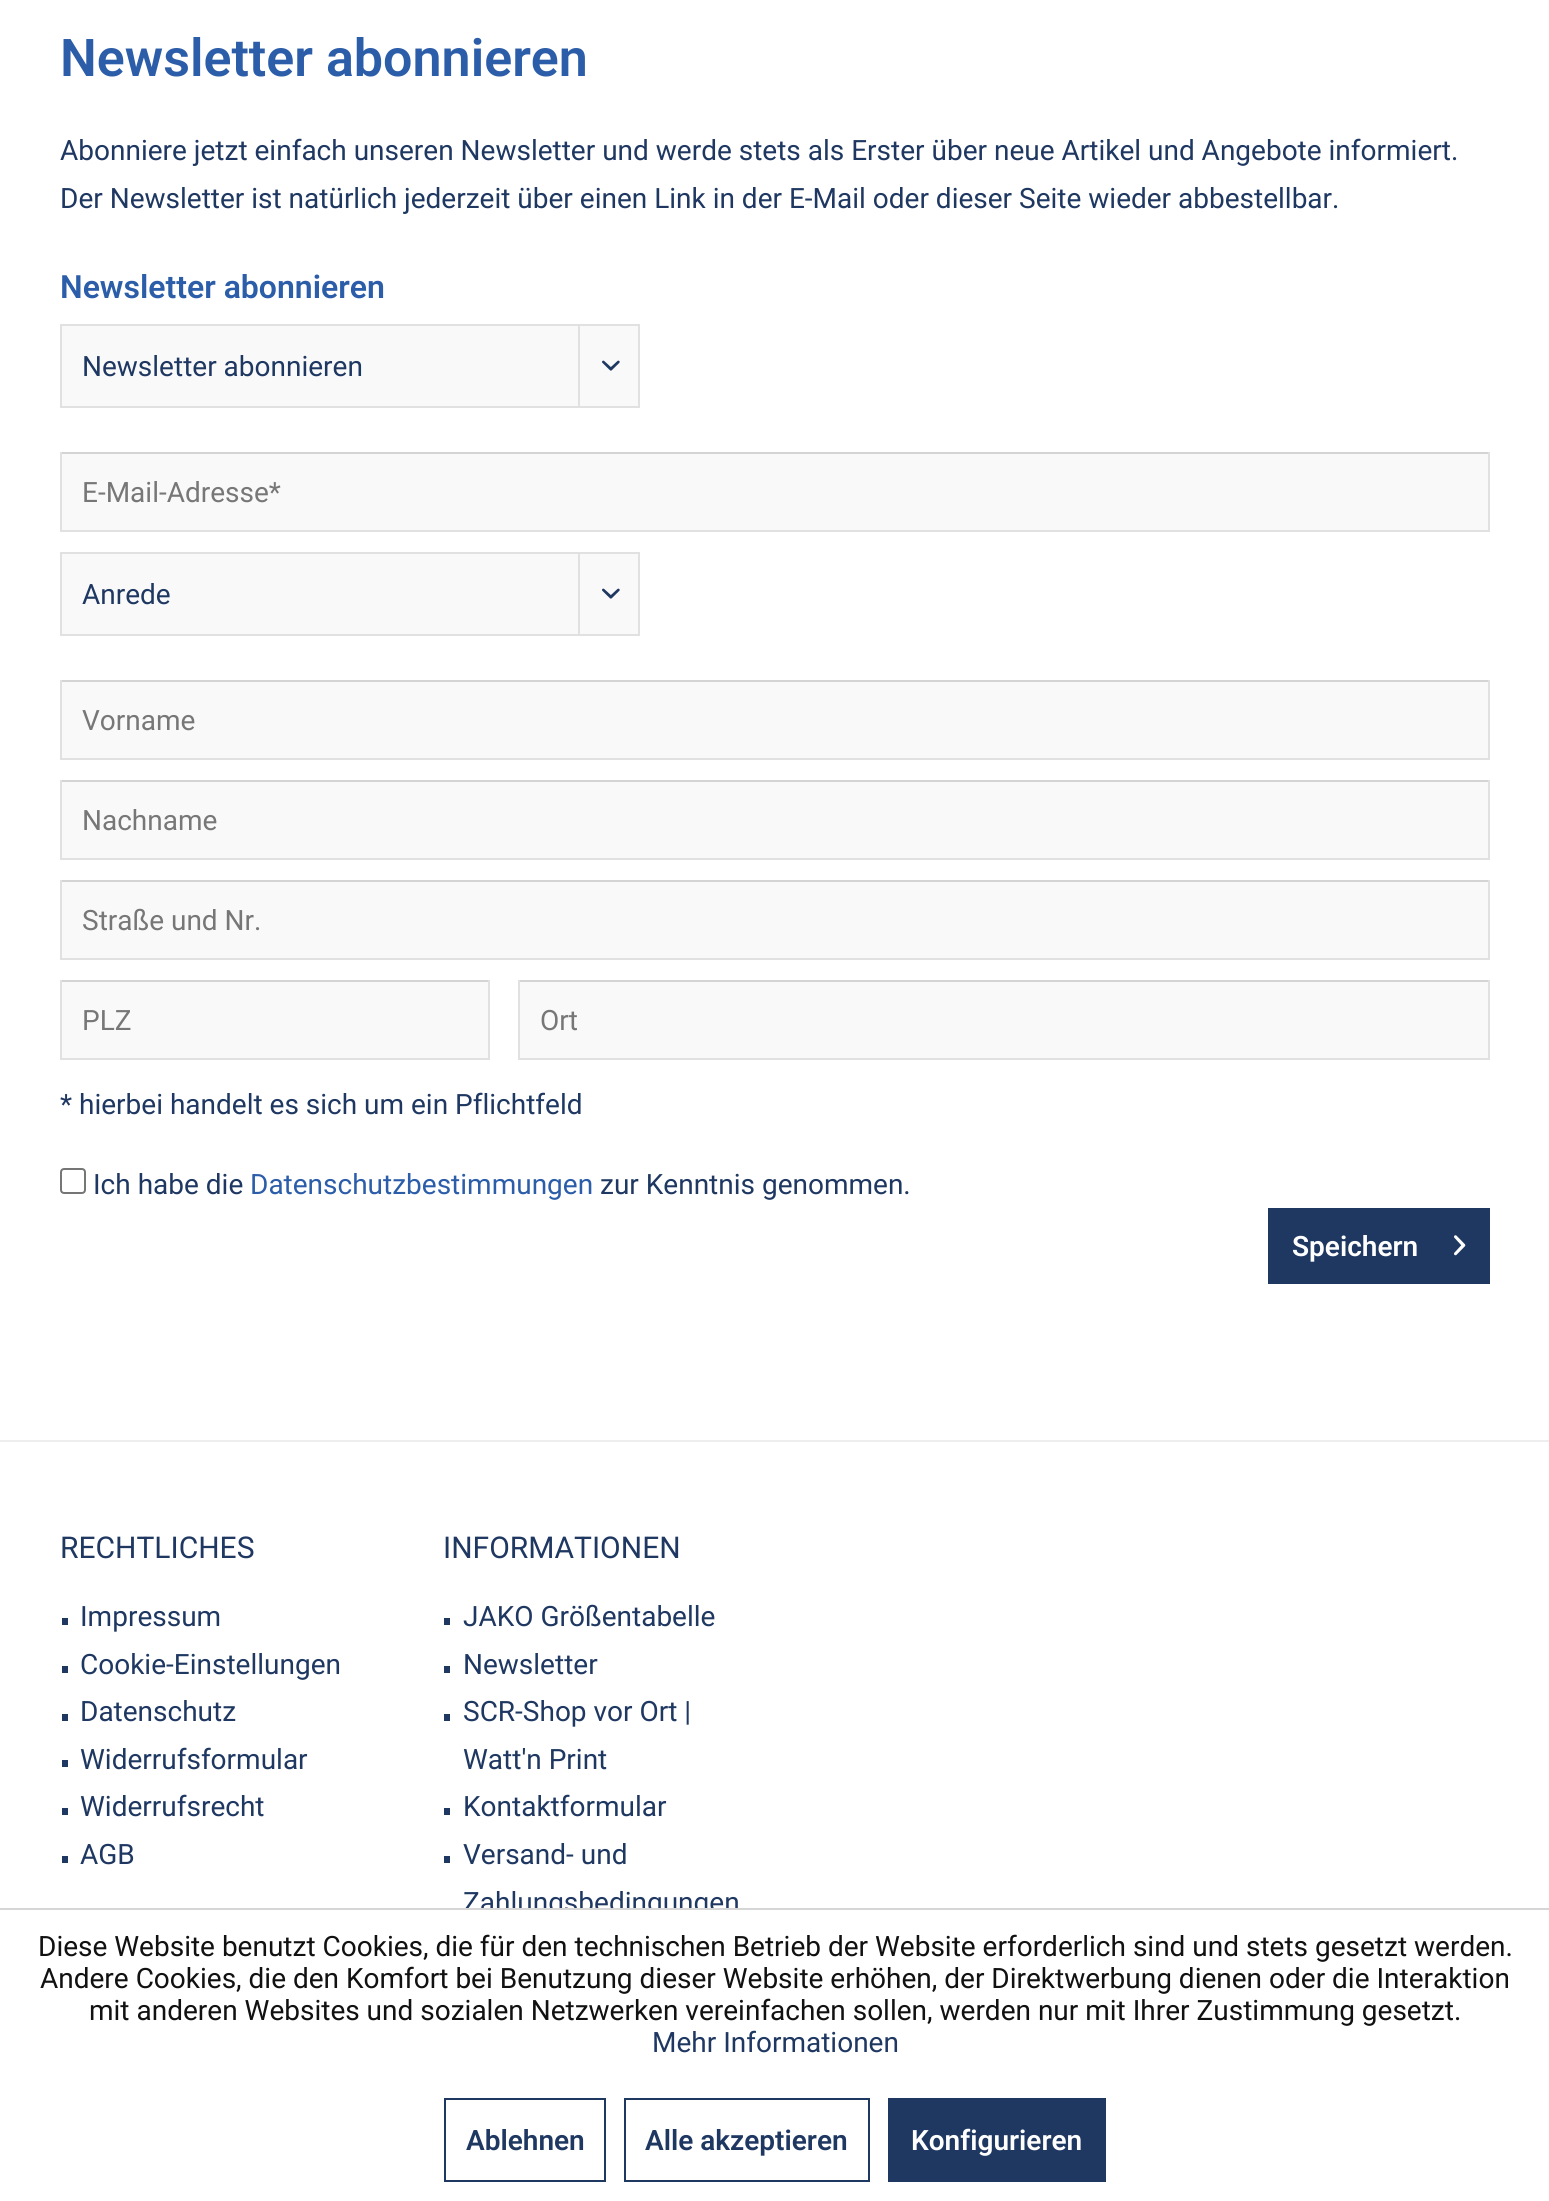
#include <cairo.h>
#include <math.h>
#include <stddef.h>

typedef struct { const char *family; double size; int italic, bold; unsigned color; } style_t;
static cairo_t *ctx;

static void ink(unsigned color) {
    cairo_set_source_rgb(ctx, (color >> 16) / 255.0, (color >> 8 & 255) / 255.0, (color & 255) / 255.0);
}

static void write(double x, double y, const char *s, const style_t *st) {
    cairo_select_font_face(ctx, st->family, st->italic ? CAIRO_FONT_SLANT_ITALIC : CAIRO_FONT_SLANT_NORMAL,
        st->bold ? CAIRO_FONT_WEIGHT_BOLD : CAIRO_FONT_WEIGHT_NORMAL);
    cairo_set_font_size(ctx, st->size);
    ink(st->color);
    cairo_move_to(ctx, x, y);
    cairo_show_text(ctx, s);
}

static void block(double x, double y, double w, double h, unsigned color) {
    ink(color);
    cairo_rectangle(ctx, x, y, w, h);
    cairo_fill(ctx);
}

static void round_path(double x, double y, double w, double h, double r) {
    cairo_new_sub_path(ctx);
    cairo_arc(ctx, x + w - r, y + h - r, r, 0, M_PI / 2);
    cairo_arc(ctx, x + r, y + h - r, r, M_PI / 2, M_PI);
    cairo_arc(ctx, x + r, y + r, r, M_PI, 1.5 * M_PI);
    cairo_arc(ctx, x + w - r, y + r, r, 1.5 * M_PI, 2 * M_PI);
    cairo_close_path(ctx);
}

static void paste(const char *path, double x, double y, double w, double h) {
    cairo_surface_t *image = cairo_image_surface_create_from_png(path);
    cairo_save(ctx);
    cairo_set_source_surface(ctx, image, x, y);
    cairo_rectangle(ctx, x, y, w, h);
    cairo_fill(ctx);
    cairo_restore(ctx);
    cairo_surface_destroy(image);
}

static const style_t s1 = {"Roboto SemiBold", 52, 0, 0, 0x2b5da9};
static const style_t s2 = {"Roboto", 28, 0, 0, 0x1f3862};
static const style_t s3 = {"Roboto SemiBold", 32, 0, 0, 0x2b5da9};
static const style_t s4 = {"Roboto", 28, 0, 0, 0x777777};
static const style_t s5 = {"Roboto", 28, 0, 0, 0x2b5da9};
static const style_t s6 = {"Roboto SemiBold", 28, 0, 0, 0xffffff};
static const style_t s7 = {"Roboto", 30, 0, 0, 0x1f3862};
static const style_t s8 = {"Roboto", 28, 0, 0, 0x111111};
static const style_t s9 = {"Roboto SemiBold", 28, 0, 0, 0x1f3862};

int main(void) {
    cairo_surface_t *surface = cairo_image_surface_create(CAIRO_FORMAT_RGB24, 1549, 2201);
    ctx = cairo_create(surface);
    cairo_font_options_t *options = cairo_font_options_create();
    cairo_font_options_set_hint_metrics(options, CAIRO_HINT_METRICS_OFF);
    cairo_font_options_set_hint_style(options, CAIRO_HINT_STYLE_NONE);
    cairo_set_font_options(ctx, options);
    cairo_set_miter_limit(ctx, 4);
    ink(0xffffff);
    cairo_paint(ctx);
    write(60, 76, "Newsletter abonnieren", &s1);
    write(60, 160, "Abonniere jetzt einfach unseren Newsletter und werde stets als Erster über neue Artikel und Angebote informiert.", &s2);
    write(60, 208, "Der Newsletter ist natürlich jederzeit über einen Link in der E-Mail oder dieser Seite wieder abbestellbar.", &s2);
    write(60, 298, "Newsletter abonnieren", &s3);
    ink(0xf9f9f9);
    cairo_rectangle(ctx, 61, 325, 578, 82);
    cairo_fill_preserve(ctx);
    ink(0xe1e1e1);
    cairo_stroke(ctx);
    write(82, 376, "Newsletter abonnieren", &s2);
    block(578, 326, 2, 80, 0xe1e1e1);
    paste("pic1.png", 602, 360, 18, 11);
    block(62, 454, 1426, 76, 0xf9f9f9);
    block(60, 452, 1430, 2, 0xd4d4d4);
    block(1488, 452, 2, 80, 0xe1e1e1);
    block(60, 530, 1430, 2, 0xe1e1e1);
    block(60, 452, 2, 80, 0xe1e1e1);
    write(82, 502, "E-Mail-Adresse*", &s4);
    ink(0xf9f9f9);
    cairo_rectangle(ctx, 61, 553, 578, 82);
    cairo_fill_preserve(ctx);
    ink(0xe1e1e1);
    cairo_stroke(ctx);
    write(82, 604, "Anrede", &s2);
    block(578, 554, 2, 80, 0xe1e1e1);
    paste("pic1.png", 602, 588, 18, 11);
    block(62, 682, 1426, 76, 0xf9f9f9);
    block(60, 680, 1430, 2, 0xd4d4d4);
    block(1488, 680, 2, 80, 0xe1e1e1);
    block(60, 758, 1430, 2, 0xe1e1e1);
    block(60, 680, 2, 80, 0xe1e1e1);
    write(82, 730, "Vorname", &s4);
    block(62, 782, 1426, 76, 0xf9f9f9);
    block(60, 780, 1430, 2, 0xd4d4d4);
    block(1488, 780, 2, 80, 0xe1e1e1);
    block(60, 858, 1430, 2, 0xe1e1e1);
    block(60, 780, 2, 80, 0xe1e1e1);
    write(82, 830, "Nachname", &s4);
    block(62, 882, 1426, 76, 0xf9f9f9);
    block(60, 880, 1430, 2, 0xd4d4d4);
    block(1488, 880, 2, 80, 0xe1e1e1);
    block(60, 958, 1430, 2, 0xe1e1e1);
    block(60, 880, 2, 80, 0xe1e1e1);
    write(82, 930, "Straße und Nr.", &s4);
    block(62, 982, 426, 76, 0xf9f9f9);
    block(60, 980, 430, 2, 0xd4d4d4);
    block(488, 980, 2, 80, 0xe1e1e1);
    block(60, 1058, 430, 2, 0xe1e1e1);
    block(60, 980, 2, 80, 0xe1e1e1);
    write(82, 1030, "PLZ", &s4);
    block(520, 982, 968, 76, 0xf9f9f9);
    block(518, 980, 972, 2, 0xd4d4d4);
    block(1488, 980, 2, 80, 0xe1e1e1);
    block(518, 1058, 972, 2, 0xe1e1e1);
    block(518, 980, 2, 80, 0xe1e1e1);
    write(540, 1030, "Ort", &s4);
    write(60, 1114, "* hierbei handelt es sich um ein Pflichtfeld", &s2);
    round_path(61, 1169, 24, 24, 3);
    ink(0x767676);
    cairo_stroke(ctx);
    write(93, 1194, "Ich habe die", &s2);
    write(250, 1194, "Datenschutzbestimmungen", &s5);
    write(600, 1194, "zur Kenntnis genommen.", &s2);
    block(1268, 1208, 222, 76, 0x1f3862);
    write(1292, 1256, "Speichern", &s6);
    paste("pic2.png", 1454, 1235, 12, 21);
    block(0, 1440, 1549, 2, 0xeeeeee);
    write(60, 1558, "RECHTLICHES", &s7);
    block(62, 1618, 6, 7, 0x1f3862);
    write(80, 1626, "Impressum", &s2);
    block(62, 1666, 6, 7, 0x1f3862);
    write(80, 1674, "Cookie-Einstellungen", &s2);
    block(62, 1714, 6, 7, 0x1f3862);
    write(80, 1721, "Datenschutz", &s2);
    block(62, 1760, 6, 7, 0x1f3862);
    write(80, 1769, "Widerrufsformular", &s2);
    block(62, 1808, 6, 7, 0x1f3862);
    write(80, 1816, "Widerrufsrecht", &s2);
    block(62, 1856, 6, 7, 0x1f3862);
    write(80, 1864, "AGB", &s2);
    write(443, 1558, "INFORMATIONEN", &s7);
    block(444, 1618, 6, 7, 0x1f3862);
    write(463, 1626, "JAKO Größentabelle", &s2);
    block(444, 1666, 6, 7, 0x1f3862);
    write(463, 1674, "Newsletter", &s2);
    block(444, 1714, 6, 7, 0x1f3862);
    write(463, 1721, "SCR-Shop vor Ort |", &s2);
    write(463, 1769, "Watt'n Print", &s2);
    block(444, 1808, 6, 7, 0x1f3862);
    write(463, 1816, "Kontaktformular", &s2);
    block(444, 1856, 6, 7, 0x1f3862);
    write(463, 1864, "Versand- und", &s2);
    write(463, 1912, "Zahlungsbedingungen", &s2);
    block(463, 1910, 275, 8, 0xffffff);
    block(0, 1908, 1549, 2, 0xd6d6d6);
    write(38, 1956, "Diese Website benutzt Cookies, die für den technischen Betrieb der Website erforderlich sind und stets gesetzt werden.", &s8);
    write(40, 1988, "Andere Cookies, die den Komfort bei Benutzung dieser Website erhöhen, der Direktwerbung dienen oder die Interaktion", &s8);
    write(89, 2020, "mit anderen Websites und sozialen Netzwerken vereinfachen sollen, werden nur mit Ihrer Zustimmung gesetzt.", &s8);
    write(652, 2052, "Mehr Informationen", &s2);
    cairo_rectangle(ctx, 445, 2099, 160, 82);
    cairo_stroke(ctx);
    write(466, 2150, "Ablehnen", &s9);
    cairo_rectangle(ctx, 625, 2099, 244, 82);
    cairo_stroke(ctx);
    write(645, 2150, "Alle akzeptieren", &s9);
    block(888, 2098, 218, 84, 0x1f3862);
    write(911, 2150, "Konfigurieren", &s6);
    cairo_surface_write_to_png(surface, "screenshot.png");
    cairo_font_options_destroy(options);
    cairo_destroy(ctx);
    cairo_surface_destroy(surface);
    return 0;
}
